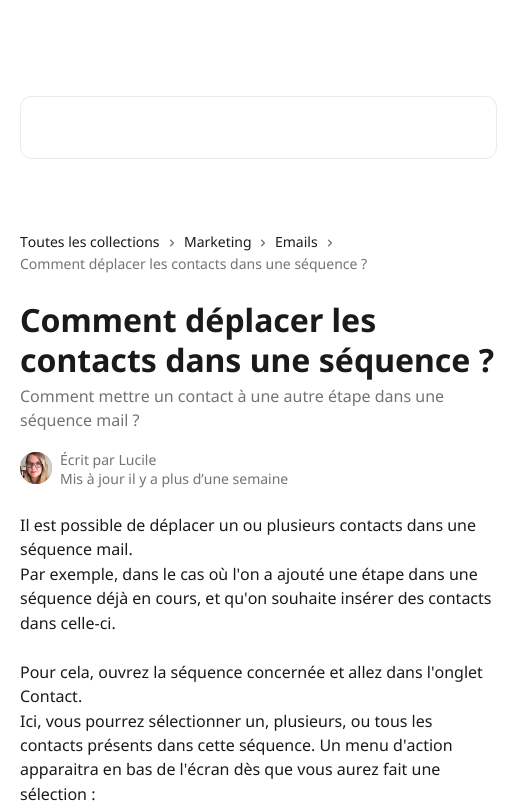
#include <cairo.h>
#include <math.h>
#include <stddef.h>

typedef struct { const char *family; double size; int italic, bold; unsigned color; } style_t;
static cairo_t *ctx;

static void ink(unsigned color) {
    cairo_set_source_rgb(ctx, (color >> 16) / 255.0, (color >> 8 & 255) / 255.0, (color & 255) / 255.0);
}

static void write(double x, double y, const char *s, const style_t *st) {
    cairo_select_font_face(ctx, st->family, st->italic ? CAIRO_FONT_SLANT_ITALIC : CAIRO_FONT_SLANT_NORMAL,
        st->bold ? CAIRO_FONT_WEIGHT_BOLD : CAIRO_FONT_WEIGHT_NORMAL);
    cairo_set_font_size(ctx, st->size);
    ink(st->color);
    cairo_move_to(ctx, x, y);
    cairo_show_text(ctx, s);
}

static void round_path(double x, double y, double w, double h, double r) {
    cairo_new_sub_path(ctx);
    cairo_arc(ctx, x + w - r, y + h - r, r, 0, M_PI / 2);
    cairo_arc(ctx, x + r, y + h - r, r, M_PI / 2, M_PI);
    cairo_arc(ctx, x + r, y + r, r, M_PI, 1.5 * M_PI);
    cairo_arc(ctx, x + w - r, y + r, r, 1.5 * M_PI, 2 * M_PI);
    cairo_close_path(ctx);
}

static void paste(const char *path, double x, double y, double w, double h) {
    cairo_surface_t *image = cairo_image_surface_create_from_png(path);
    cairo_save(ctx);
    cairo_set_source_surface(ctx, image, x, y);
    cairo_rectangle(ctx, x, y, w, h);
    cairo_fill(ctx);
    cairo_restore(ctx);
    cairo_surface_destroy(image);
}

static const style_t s1 = {"Noto Sans", 14, 0, 0, 0x1a1a1a};
static const style_t s2 = {"Noto Sans", 14, 0, 0, 0x737373};
static const style_t s3 = {"Noto Sans", 32, 0, 1, 0x1a1a1a};
static const style_t s4 = {"Noto Sans", 16, 0, 0, 0x737373};
static const style_t s5 = {"Noto Sans", 16, 0, 0, 0x1a1a1a};

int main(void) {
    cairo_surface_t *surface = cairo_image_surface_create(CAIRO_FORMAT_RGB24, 517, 812);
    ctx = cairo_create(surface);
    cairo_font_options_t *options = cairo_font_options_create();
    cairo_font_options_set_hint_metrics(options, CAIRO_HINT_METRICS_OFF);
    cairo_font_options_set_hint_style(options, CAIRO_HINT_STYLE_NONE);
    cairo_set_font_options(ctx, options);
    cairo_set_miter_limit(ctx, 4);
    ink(0xffffff);
    cairo_paint(ctx);
    round_path(20.5, 96.5, 476, 62, 11.5);
    cairo_set_source_rgba(ctx, 0, 0, 0, 0.08);
    cairo_set_line_width(ctx, 1);
    cairo_stroke(ctx);
    write(20, 247, "Toutes les collections", &s1);
    paste("pic1.png", 170, 239, 4, 8);
    write(184, 247, "Marketing", &s1);
    paste("pic1.png", 261, 239, 4, 8);
    write(275, 247, "Emails", &s1);
    paste("pic1.png", 328, 239, 4, 8);
    write(20, 269, "Comment déplacer les contacts dans une séquence ?", &s2);
    write(20, 332, "Comment déplacer les", &s3);
    write(20, 372, "contacts dans une séquence ?", &s3);
    write(20, 402, "Comment mettre un contact à une autre étape dans une", &s4);
    write(20, 426, "séquence mail ?", &s4);
    ink(0xee533f);
    cairo_new_path(ctx);
    cairo_arc(ctx, 36, 468, 16, 0, 2 * M_PI);
    cairo_fill(ctx);
    paste("pic2.png", 20, 452, 32, 32);
    write(60, 465, "Écrit par Lucile", &s2);
    write(60, 484, "Mis à jour il y a plus d’une semaine", &s2);
    write(20, 531, "Il est possible de déplacer un ou plusieurs contacts dans une", &s5);
    write(20, 555, "séquence mail.", &s5);
    write(20, 580, "Par exemple, dans le cas où l'on a ajouté une étape dans une", &s5);
    write(20, 604, "séquence déjà en cours, et qu'on souhaite insérer des contacts", &s5);
    write(20, 629, "dans celle-ci.", &s5);
    write(20, 678, "Pour cela, ouvrez la séquence concernée et allez dans l'onglet", &s5);
    write(20, 702, "Contact.", &s5);
    write(20, 727, "Ici, vous pourrez sélectionner un, plusieurs, ou tous les", &s5);
    write(20, 751, "contacts présents dans cette séquence. Un menu d'action", &s5);
    write(20, 775, "apparaitra en bas de l'écran dès que vous aurez fait une", &s5);
    write(20, 800, "sélection :", &s5);
    cairo_surface_write_to_png(surface, "screenshot.png");
    cairo_font_options_destroy(options);
    cairo_destroy(ctx);
    cairo_surface_destroy(surface);
    return 0;
}
